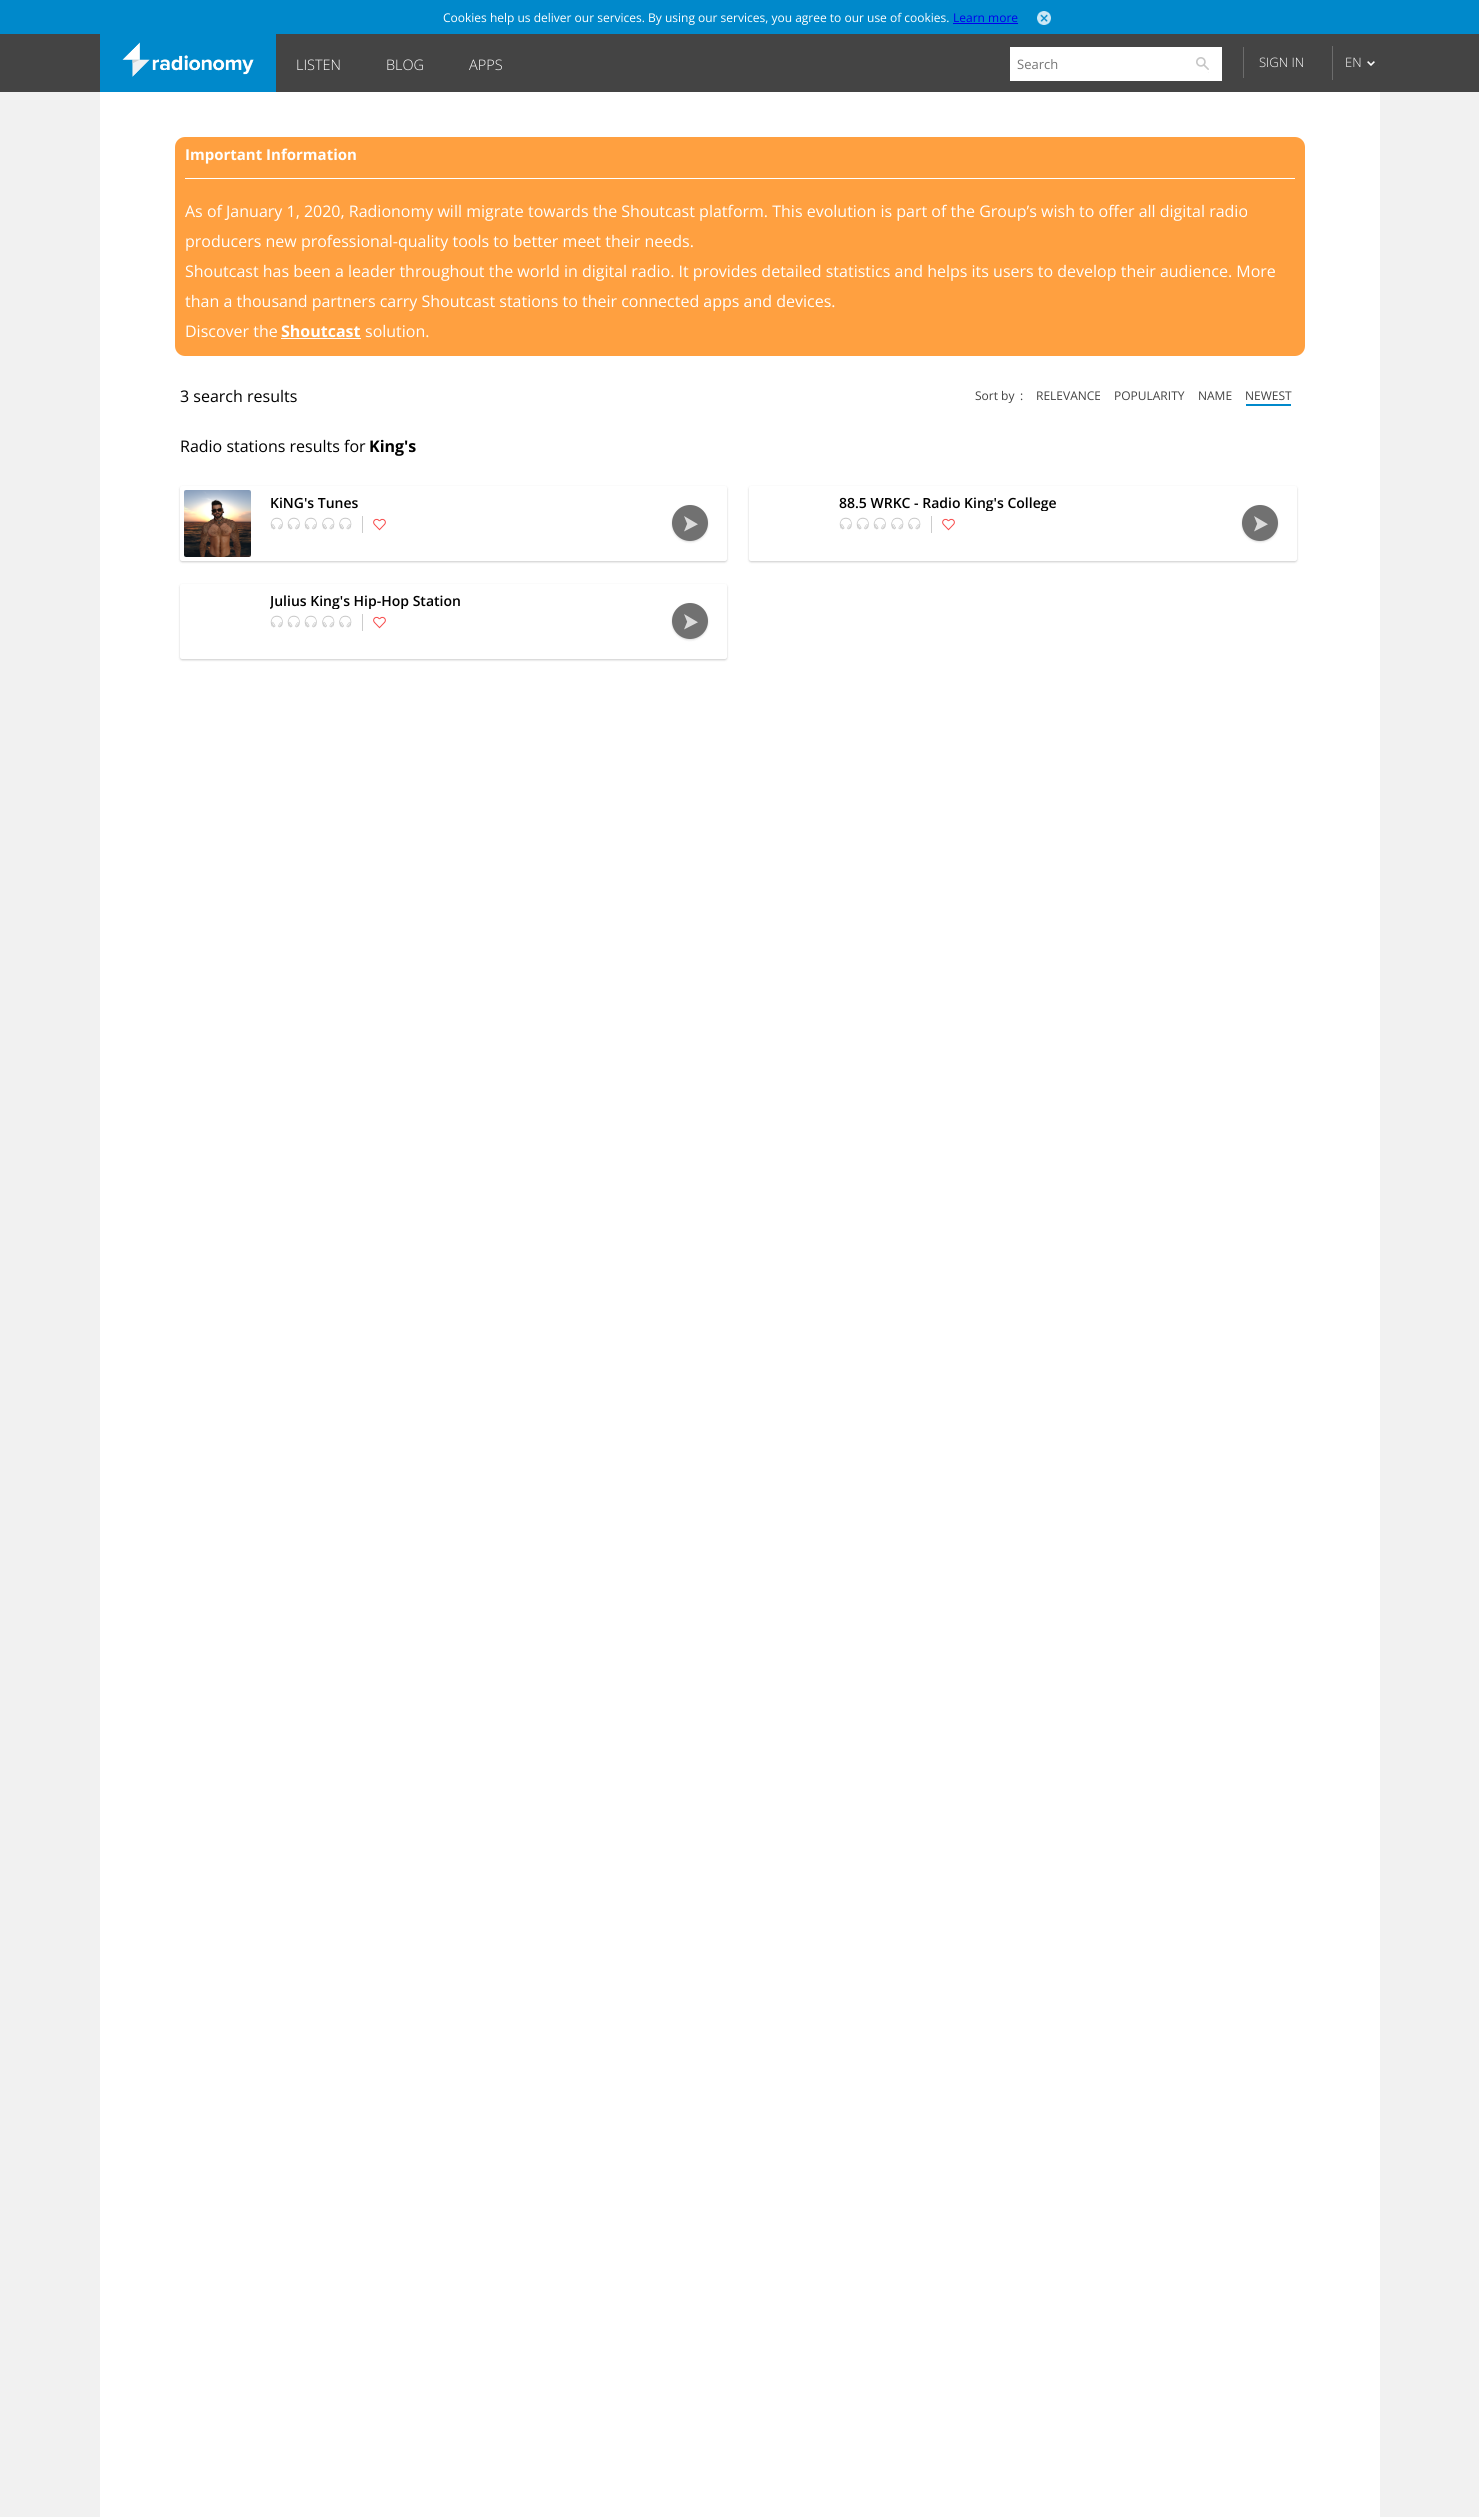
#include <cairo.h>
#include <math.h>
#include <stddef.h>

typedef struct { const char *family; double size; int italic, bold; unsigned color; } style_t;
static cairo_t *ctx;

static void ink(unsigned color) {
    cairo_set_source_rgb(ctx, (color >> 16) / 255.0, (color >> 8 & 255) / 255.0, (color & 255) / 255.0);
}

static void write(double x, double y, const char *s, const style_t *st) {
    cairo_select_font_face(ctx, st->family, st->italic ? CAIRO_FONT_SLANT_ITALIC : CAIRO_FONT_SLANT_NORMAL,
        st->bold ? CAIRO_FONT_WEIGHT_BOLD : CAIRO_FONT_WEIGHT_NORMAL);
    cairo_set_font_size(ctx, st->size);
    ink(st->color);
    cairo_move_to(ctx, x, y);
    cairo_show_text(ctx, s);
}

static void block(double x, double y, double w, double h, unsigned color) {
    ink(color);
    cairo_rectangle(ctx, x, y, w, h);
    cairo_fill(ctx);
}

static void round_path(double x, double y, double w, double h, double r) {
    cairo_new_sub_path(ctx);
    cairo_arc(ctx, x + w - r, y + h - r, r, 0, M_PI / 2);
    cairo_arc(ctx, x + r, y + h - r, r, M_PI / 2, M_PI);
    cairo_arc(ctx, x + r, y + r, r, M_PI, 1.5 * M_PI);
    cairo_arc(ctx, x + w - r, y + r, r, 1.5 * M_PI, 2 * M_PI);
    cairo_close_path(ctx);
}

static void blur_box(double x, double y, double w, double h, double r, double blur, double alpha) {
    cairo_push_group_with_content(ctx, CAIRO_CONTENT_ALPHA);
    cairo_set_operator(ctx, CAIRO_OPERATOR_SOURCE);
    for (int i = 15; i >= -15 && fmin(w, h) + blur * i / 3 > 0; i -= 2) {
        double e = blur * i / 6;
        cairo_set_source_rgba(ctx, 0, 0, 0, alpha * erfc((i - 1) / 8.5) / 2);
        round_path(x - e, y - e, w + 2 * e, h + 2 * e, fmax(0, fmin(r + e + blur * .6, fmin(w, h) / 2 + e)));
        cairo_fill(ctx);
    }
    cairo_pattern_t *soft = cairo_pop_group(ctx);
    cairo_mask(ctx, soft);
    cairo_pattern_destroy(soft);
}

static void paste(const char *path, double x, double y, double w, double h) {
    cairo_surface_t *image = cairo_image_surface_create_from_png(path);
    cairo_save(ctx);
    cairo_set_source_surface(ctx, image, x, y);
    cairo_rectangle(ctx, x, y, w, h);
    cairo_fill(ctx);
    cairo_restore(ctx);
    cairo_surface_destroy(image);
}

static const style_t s1 = {"Open Sans", 12, 0, 0, 0xffffff};
static const style_t s2 = {"Open Sans", 12, 0, 0, 0x0000ee};
static const style_t s3 = {"Open Sans Light", 14.5, 0, 0, 0xffffff};
static const style_t s4 = {"Open Sans", 13, 0, 0, 0x757575};
static const style_t s5 = {"Open Sans Light", 13, 0, 0, 0xffffff};
static const style_t s6 = {"Open Sans", 15, 0, 1, 0xffffff};
static const style_t s7 = {"Open Sans", 16, 0, 0, 0xffffff};
static const style_t s8 = {"Open Sans", 16, 0, 1, 0xffffff};
static const style_t s9 = {"Open Sans", 16, 0, 0, 0x000000};
static const style_t s10 = {"Open Sans", 12, 0, 0, 0x424242};
static const style_t s11 = {"Open Sans", 16, 0, 1, 0x000000};
static const style_t s12 = {"Open Sans SemiBold", 14, 0, 0, 0x000000};

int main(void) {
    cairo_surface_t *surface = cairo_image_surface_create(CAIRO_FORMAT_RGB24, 1479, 2517);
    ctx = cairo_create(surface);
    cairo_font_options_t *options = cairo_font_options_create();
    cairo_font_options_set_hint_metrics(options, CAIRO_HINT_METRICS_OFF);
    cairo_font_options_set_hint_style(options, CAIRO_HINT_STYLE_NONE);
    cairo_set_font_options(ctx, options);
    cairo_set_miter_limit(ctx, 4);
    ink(0xf1f1f1);
    cairo_paint(ctx);
    block(0, 0, 1479, 34, 0x0089cb);
    write(443, 22, "Cookies help us deliver our services. By using our services, you agree to our use of cookies.", &s1);
    write(953, 22, "Learn more", &s2);
    block(953, 23, 65, 1, 0x0000ee);
    paste("pic1.png", 1037, 11, 14, 14);
    block(0, 34, 1479, 58, 0x444444);
    block(100, 34, 176, 58, 0x0089cb);
    paste("pic2.png", 122, 42, 132, 35);
    write(296, 70, "LISTEN", &s3);
    write(386, 70, "BLOG", &s3);
    write(469, 70, "APPS", &s3);
    block(1010, 47, 212, 34, 0xffffff);
    write(1017, 69, "Search", &s4);
    paste("pic3.png", 1196, 57, 13, 16);
    block(1243, 47, 1, 31, 0x6c6c6c);
    write(1259, 67, "SIGN IN", &s5);
    block(1332, 46, 1, 34, 0x6c6c6c);
    paste("pic4.png", 1367, 61, 12, 5);
    write(1345, 67, "EN", &s5);
    block(100, 92, 1280, 2425, 0xffffff);
    ink(0xffa040);
    round_path(175, 137, 1130, 219, 10);
    cairo_fill(ctx);
    write(185, 160, "Important Information", &s6);
    block(185, 178, 1110, 1, 0xffffff);
    write(185, 217, "As of January 1, 2020, Radionomy will migrate towards the Shoutcast platform. This evolution is part of the Group’s wish to offer all digital radio", &s7);
    write(185, 247, "producers new professional-quality tools to better meet their needs.", &s7);
    write(185, 277, "Shoutcast has been a leader throughout the world in digital radio. It provides detailed statistics and helps its users to develop their audience. More", &s7);
    write(185, 307, "than a thousand partners carry Shoutcast stations to their connected apps and devices.", &s7);
    write(185, 337, "Discover the", &s7);
    write(281, 337, "Shoutcast", &s8);
    block(281, 338, 80, 1, 0xffffff);
    write(365, 337, "solution.", &s7);
    write(180, 402, "3 search results", &s9);
    write(975, 400, "Sort by", &s10);
    write(1020, 400, ":", &s10);
    write(1036, 400, "RELEVANCE", &s10);
    write(1114, 400, "POPULARITY", &s10);
    write(1198, 400, "NAME", &s10);
    write(1245, 400, "NEWEST", &s10);
    block(1246, 404, 45, 2, 0x0089cb);
    write(180, 452, "Radio stations results for", &s9);
    write(369, 452, "King's", &s11);
    ink(0x000000);
    blur_box(180, 487, 547, 75, 2, 1, 0.2);
    ink(0xffffff);
    round_path(180, 486, 547, 75, 2);
    cairo_fill(ctx);
    paste("pic5.png", 184, 490, 67, 67);
    write(270, 508, "KiNG's Tunes", &s12);
    paste("pic6.png", 270, 517, 82, 13);
    block(362, 516, 1, 17, 0xcccccc);
    paste("pic7.png", 373, 518, 13, 13);
    ink(0x404040);
    blur_box(672, 506, 36, 36, 18, 1, 0.2);
    ink(0x717171);
    cairo_arc(ctx, 690, 523, 18, 0, 2 * M_PI);
    cairo_fill(ctx);
    paste("pic8.png", 684, 516, 14, 16);
    ink(0x000000);
    blur_box(749, 487, 548, 75, 2, 1, 0.2);
    ink(0xffffff);
    round_path(749, 486, 548, 75, 2);
    cairo_fill(ctx);
    cairo_save(ctx);
    cairo_rectangle(ctx, 839, 496, 369, 15);
    cairo_clip(ctx);
    write(839, 508, "88.5 WRKC - Radio King's College", &s12);
    cairo_restore(ctx);
    paste("pic6.png", 839, 517, 82, 13);
    block(931, 516, 1, 17, 0xcccccc);
    paste("pic7.png", 942, 518, 13, 13);
    ink(0x404040);
    blur_box(1242, 506, 36, 36, 18, 1, 0.2);
    ink(0x717171);
    cairo_arc(ctx, 1260, 523, 18, 0, 2 * M_PI);
    cairo_fill(ctx);
    paste("pic8.png", 1254, 516, 14, 16);
    ink(0x000000);
    blur_box(180, 585, 547, 75, 2, 1, 0.2);
    ink(0xffffff);
    round_path(180, 584, 547, 75, 2);
    cairo_fill(ctx);
    cairo_save(ctx);
    cairo_rectangle(ctx, 270, 594, 368, 15);
    cairo_clip(ctx);
    write(270, 606, "Julius King's Hip-Hop Station", &s12);
    cairo_restore(ctx);
    paste("pic6.png", 270, 615, 82, 13);
    block(362, 614, 1, 17, 0xcccccc);
    paste("pic7.png", 373, 616, 13, 13);
    ink(0x404040);
    blur_box(672, 604, 36, 36, 18, 1, 0.2);
    ink(0x717171);
    cairo_arc(ctx, 690, 621, 18, 0, 2 * M_PI);
    cairo_fill(ctx);
    paste("pic8.png", 684, 614, 14, 16);
    cairo_surface_write_to_png(surface, "screenshot.png");
    cairo_font_options_destroy(options);
    cairo_destroy(ctx);
    cairo_surface_destroy(surface);
    return 0;
}
